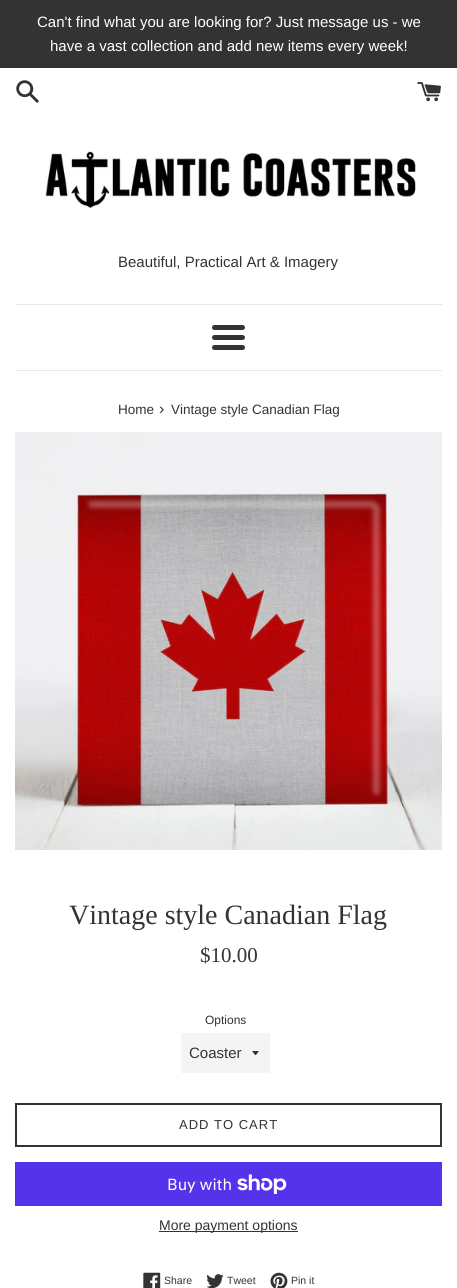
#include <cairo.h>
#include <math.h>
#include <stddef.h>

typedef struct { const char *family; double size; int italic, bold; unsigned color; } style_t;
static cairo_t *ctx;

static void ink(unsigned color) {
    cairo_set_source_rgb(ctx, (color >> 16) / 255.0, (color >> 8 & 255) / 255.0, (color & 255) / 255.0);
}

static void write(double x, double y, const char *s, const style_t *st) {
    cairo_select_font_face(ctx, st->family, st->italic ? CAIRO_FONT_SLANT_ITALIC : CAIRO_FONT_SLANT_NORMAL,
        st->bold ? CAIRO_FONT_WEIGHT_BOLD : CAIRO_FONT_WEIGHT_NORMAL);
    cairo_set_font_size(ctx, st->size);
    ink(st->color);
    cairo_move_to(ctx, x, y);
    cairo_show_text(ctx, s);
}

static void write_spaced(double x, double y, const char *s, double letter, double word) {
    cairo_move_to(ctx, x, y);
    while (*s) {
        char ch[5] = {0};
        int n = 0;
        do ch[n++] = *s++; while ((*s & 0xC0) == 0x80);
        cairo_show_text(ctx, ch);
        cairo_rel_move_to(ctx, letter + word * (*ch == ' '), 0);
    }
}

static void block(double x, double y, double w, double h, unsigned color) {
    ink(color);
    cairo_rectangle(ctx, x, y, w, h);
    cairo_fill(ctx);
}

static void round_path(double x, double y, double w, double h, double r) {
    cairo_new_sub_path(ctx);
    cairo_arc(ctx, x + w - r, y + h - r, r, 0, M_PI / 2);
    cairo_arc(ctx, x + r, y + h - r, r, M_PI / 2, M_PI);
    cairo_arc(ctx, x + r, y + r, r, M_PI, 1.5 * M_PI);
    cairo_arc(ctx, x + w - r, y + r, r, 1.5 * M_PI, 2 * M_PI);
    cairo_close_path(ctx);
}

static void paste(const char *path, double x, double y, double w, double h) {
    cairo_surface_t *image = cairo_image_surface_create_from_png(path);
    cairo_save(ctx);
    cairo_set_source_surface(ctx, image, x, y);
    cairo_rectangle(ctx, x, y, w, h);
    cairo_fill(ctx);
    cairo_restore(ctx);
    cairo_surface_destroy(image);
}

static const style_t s1 = {"Liberation Sans", 15, 0, 0, 0xffffff};
static const style_t s2 = {"Liberation Sans", 15, 0, 0, 0x333333};
static const style_t s3 = {"Liberation Sans", 13.5, 0, 0, 0x333333};
static const style_t s4 = {"Liberation Sans", 16, 0, 0, 0x333333};
static const style_t s5 = {"Liberation Serif", 28, 0, 0, 0x333333};
static const style_t s6 = {"Liberation Serif", 21, 0, 0, 0x333333};
static const style_t s7 = {"Liberation Sans", 12, 0, 0, 0x333333};
static const style_t s8 = {"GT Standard", 16, 0, 0, 0xffffff};
static const style_t s9 = {"Liberation Sans", 14, 0, 0, 0x333333};
static const style_t s10 = {"Liberation Sans", 10.5, 0, 0, 0x333333};

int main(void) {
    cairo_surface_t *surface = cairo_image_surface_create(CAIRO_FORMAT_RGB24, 457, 1288);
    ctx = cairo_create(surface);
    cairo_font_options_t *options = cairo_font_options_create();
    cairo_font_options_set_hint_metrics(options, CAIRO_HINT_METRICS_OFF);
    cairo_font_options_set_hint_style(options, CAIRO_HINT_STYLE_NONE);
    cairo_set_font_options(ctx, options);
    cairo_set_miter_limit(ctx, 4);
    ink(0xffffff);
    cairo_paint(ctx);
    block(0, 0, 457, 68, 0x333333);
    write(37, 27, "Can't find what you are looking for? Just message us - we", &s1);
    write(50, 51, "have a vast collection and add new items every week!", &s1);
    paste("pic1.png", 16, 80, 23, 23);
    paste("pic2.png", 417, 82, 24, 20);
    paste("pic3.png", 45, 151, 371, 58);
    write(118, 267, "Beautiful, Practical Art & Imagery", &s2);
    block(15, 304, 427, 1, 0xe8e8e8);
    ink(0x333333);
    round_path(212, 325, 33, 5, 2.5);
    cairo_fill(ctx);
    round_path(212, 335, 33, 5, 2.5);
    cairo_fill(ctx);
    round_path(212, 345, 33, 5, 2.5);
    cairo_fill(ctx);
    block(15, 370, 427, 1, 0xe8e8e8);
    write(118, 414, "Home", &s3);
    write(159, 414, "›", &s4);
    write(171, 414, "Vintage style Canadian Flag", &s3);
    paste("pic4.png", 15, 432, 427, 418);
    write(69, 924, "Vintage style Canadian Flag", &s5);
    write(200, 962, "$10.00", &s6);
    write(205, 1024, "Options", &s7);
    block(181, 1033, 89, 40, 0xf4f4f4);
    ink(0x333333);
    cairo_new_path(ctx);
    cairo_move_to(ctx, 252, 1051);
    cairo_curve_to(ctx, 256.5, 1056.5, 254.5, 1056.5, 259, 1051);
    cairo_close_path(ctx);
    cairo_fill(ctx);
    write(189, 1058, "Coaster", &s2);
    cairo_rectangle(ctx, 16, 1104, 425, 42);
    cairo_stroke(ctx);
    cairo_set_font_size(ctx, 13);
    write_spaced(179, 1129, "ADD TO CART", 1, 0);
    block(15, 1162, 427, 44, 0x5433eb);
    write(167, 1190, "Buy with", &s8);
    paste("pic5.png", 237, 1174, 50, 20);
    block(159, 1231, 139, 1, 0x333333);
    write(159, 1230, "More payment options", &s9);
    paste("pic6.png", 143, 1272, 18, 16);
    write(164, 1284, "Share", &s10);
    paste("pic7.png", 206, 1274, 18, 14);
    write(227, 1284, "Tweet", &s10);
    paste("pic8.png", 270, 1272, 18, 16);
    write(291, 1284, "Pin it", &s10);
    cairo_surface_write_to_png(surface, "screenshot.png");
    cairo_font_options_destroy(options);
    cairo_destroy(ctx);
    cairo_surface_destroy(surface);
    return 0;
}
